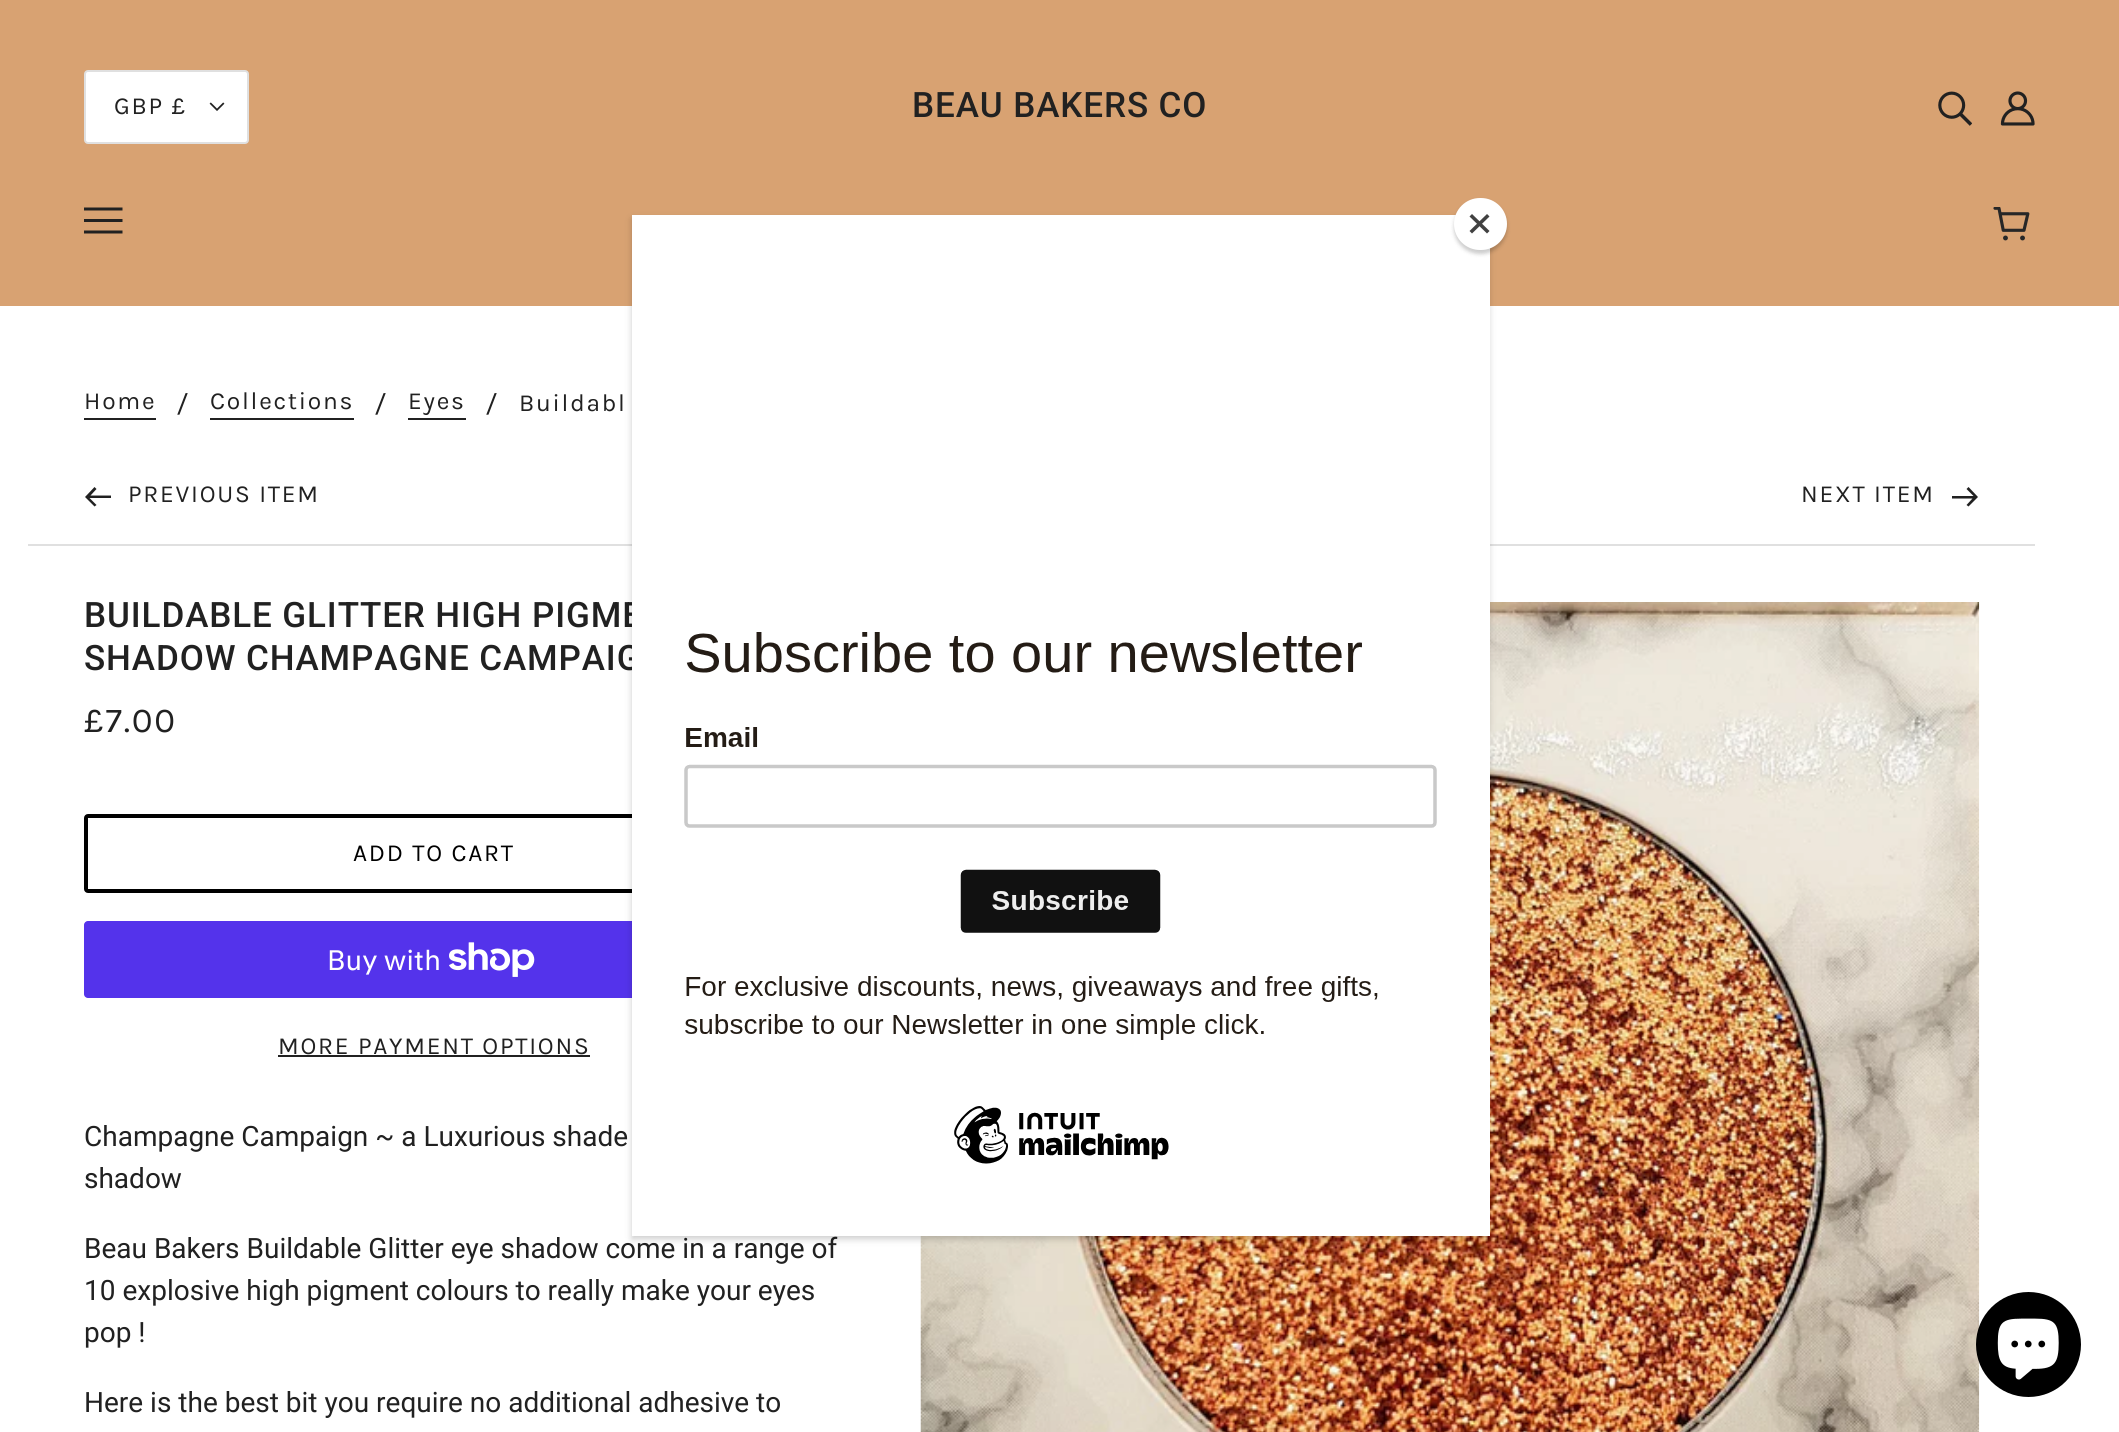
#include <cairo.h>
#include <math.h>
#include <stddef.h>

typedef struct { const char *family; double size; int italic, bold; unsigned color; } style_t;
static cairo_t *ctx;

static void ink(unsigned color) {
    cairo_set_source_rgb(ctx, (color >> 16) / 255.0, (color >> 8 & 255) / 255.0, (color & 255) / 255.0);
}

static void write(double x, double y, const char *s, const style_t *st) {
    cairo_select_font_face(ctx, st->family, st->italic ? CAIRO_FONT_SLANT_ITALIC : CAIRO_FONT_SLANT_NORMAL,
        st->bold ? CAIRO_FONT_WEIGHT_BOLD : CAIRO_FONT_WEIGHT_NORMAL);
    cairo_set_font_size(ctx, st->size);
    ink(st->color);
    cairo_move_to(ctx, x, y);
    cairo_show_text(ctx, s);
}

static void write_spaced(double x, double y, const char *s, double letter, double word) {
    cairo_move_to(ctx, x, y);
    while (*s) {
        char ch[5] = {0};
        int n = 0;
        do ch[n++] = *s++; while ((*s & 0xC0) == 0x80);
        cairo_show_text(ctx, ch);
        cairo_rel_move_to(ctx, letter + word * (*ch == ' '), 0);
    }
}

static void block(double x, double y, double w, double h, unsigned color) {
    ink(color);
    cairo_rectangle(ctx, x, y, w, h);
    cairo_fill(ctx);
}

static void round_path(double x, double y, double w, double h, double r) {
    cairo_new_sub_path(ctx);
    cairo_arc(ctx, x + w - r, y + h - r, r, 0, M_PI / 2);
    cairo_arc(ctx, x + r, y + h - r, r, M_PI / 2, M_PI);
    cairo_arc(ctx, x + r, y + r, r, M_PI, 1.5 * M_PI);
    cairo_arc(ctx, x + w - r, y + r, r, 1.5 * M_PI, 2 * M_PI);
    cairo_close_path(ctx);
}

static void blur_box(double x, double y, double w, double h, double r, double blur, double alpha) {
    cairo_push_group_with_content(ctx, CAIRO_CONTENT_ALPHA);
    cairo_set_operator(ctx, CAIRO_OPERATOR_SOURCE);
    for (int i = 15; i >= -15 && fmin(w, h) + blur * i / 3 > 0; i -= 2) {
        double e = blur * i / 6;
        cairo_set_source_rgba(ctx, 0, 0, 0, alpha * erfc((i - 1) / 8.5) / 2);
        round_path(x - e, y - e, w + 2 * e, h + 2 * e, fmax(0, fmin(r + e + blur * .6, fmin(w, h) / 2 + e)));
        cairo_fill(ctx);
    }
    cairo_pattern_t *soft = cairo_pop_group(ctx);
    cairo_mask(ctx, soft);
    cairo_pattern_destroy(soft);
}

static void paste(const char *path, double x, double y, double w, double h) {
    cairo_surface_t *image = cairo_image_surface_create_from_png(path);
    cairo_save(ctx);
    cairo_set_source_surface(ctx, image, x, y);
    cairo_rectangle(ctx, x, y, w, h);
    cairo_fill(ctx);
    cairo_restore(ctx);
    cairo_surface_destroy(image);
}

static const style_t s1 = {"Roboto", 28, 0, 0, 0x212121};
static const style_t s2 = {"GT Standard", 28, 0, 0, 0xffffff};

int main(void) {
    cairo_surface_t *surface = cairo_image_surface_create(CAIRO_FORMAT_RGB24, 2119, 1432);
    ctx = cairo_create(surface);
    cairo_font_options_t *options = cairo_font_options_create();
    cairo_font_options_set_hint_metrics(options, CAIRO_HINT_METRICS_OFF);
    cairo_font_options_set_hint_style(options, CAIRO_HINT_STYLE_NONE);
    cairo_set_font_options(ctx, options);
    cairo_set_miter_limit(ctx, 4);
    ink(0xffffff);
    cairo_paint(ctx);
    block(0, 0, 2119, 306, 0xd8a272);
    ink(0xffffff);
    round_path(85, 71, 163, 72, 3);
    cairo_fill_preserve(ctx);
    ink(0xe0e0e0);
    cairo_stroke(ctx);
    cairo_select_font_face(ctx, "Karla", CAIRO_FONT_SLANT_NORMAL, CAIRO_FONT_WEIGHT_NORMAL);
    cairo_set_font_size(ctx, 24.5);
    ink(0x212121);
    write_spaced(114, 114, "GBP £", 1.75, 0);
    paste("pic1.png", 209, 102, 16, 9);
    cairo_select_font_face(ctx, "Roboto Medium", CAIRO_FONT_SLANT_NORMAL, CAIRO_FONT_WEIGHT_NORMAL);
    cairo_set_font_size(ctx, 35);
    write_spaced(912, 117, "BEAU BAKERS CO", 0.9, 0);
    paste("pic2.png", 1938, 91, 34, 35);
    paste("pic3.png", 2000, 91, 35, 35);
    cairo_new_path(ctx);
    cairo_move_to(ctx, 84, 210.5);
    cairo_line_to(ctx, 84, 207.5);
    cairo_line_to(ctx, 122.5, 207.5);
    cairo_line_to(ctx, 122.5, 210.5);
    cairo_close_path(ctx);
    cairo_move_to(ctx, 84, 222);
    cairo_line_to(ctx, 84, 219);
    cairo_line_to(ctx, 122.5, 219);
    cairo_line_to(ctx, 122.5, 222);
    cairo_close_path(ctx);
    cairo_move_to(ctx, 84, 233.5);
    cairo_line_to(ctx, 84, 230.5);
    cairo_line_to(ctx, 122.5, 230.5);
    cairo_line_to(ctx, 122.5, 233.5);
    cairo_close_path(ctx);
    cairo_fill(ctx);
    paste("pic4.png", 1993, 207, 37, 34);
    cairo_select_font_face(ctx, "Karla", CAIRO_FONT_SLANT_NORMAL, CAIRO_FONT_WEIGHT_NORMAL);
    cairo_set_font_size(ctx, 24.5);
    write_spaced(84, 409, "Home", 1.75, 0);
    block(84, 418, 72, 2, 0x212121);
    write(177, 413, "/", &s1);
    cairo_select_font_face(ctx, "Karla", CAIRO_FONT_SLANT_NORMAL, CAIRO_FONT_WEIGHT_NORMAL);
    cairo_set_font_size(ctx, 24.5);
    write_spaced(210, 409, "Collections", 1.75, 0);
    block(210, 418, 144, 2, 0x212121);
    write(375, 413, "/", &s1);
    cairo_select_font_face(ctx, "Karla", CAIRO_FONT_SLANT_NORMAL, CAIRO_FONT_WEIGHT_NORMAL);
    cairo_set_font_size(ctx, 24.5);
    write_spaced(408, 409, "Eyes", 1.75, 0);
    block(408, 418, 58, 2, 0x212121);
    write(486, 413, "/", &s1);
    cairo_select_font_face(ctx, "Karla", CAIRO_FONT_SLANT_NORMAL, CAIRO_FONT_WEIGHT_NORMAL);
    cairo_set_font_size(ctx, 24.5);
    write_spaced(519, 411, "Buildabl", 1.75, 0);
    block(28, 544, 2007, 2, 0xe0e0e0);
    ink(0x212121);
    cairo_new_path(ctx);
    cairo_move_to(ctx, 90.5, 495.5);
    cairo_line_to(ctx, 111, 495.5);
    cairo_line_to(ctx, 111, 498);
    cairo_line_to(ctx, 89.5, 498);
    cairo_line_to(ctx, 96.5, 505);
    cairo_line_to(ctx, 94.5, 506.5);
    cairo_line_to(ctx, 85, 497);
    cairo_line_to(ctx, 94.5, 487);
    cairo_line_to(ctx, 96.5, 489);
    cairo_close_path(ctx);
    cairo_fill(ctx);
    write_spaced(128, 502, "PREVIOUS ITEM", 1.75, 0);
    write_spaced(1801, 502, "NEXT ITEM", 1.75, 0);
    cairo_new_path(ctx);
    cairo_move_to(ctx, 1972.5, 498.5);
    cairo_line_to(ctx, 1952, 498.5);
    cairo_line_to(ctx, 1952, 496);
    cairo_line_to(ctx, 1973.5, 496);
    cairo_line_to(ctx, 1966.5, 489);
    cairo_line_to(ctx, 1968.5, 487);
    cairo_line_to(ctx, 1978, 497);
    cairo_line_to(ctx, 1968.5, 506.5);
    cairo_line_to(ctx, 1966.5, 505);
    cairo_close_path(ctx);
    cairo_fill(ctx);
    cairo_select_font_face(ctx, "Roboto Medium", CAIRO_FONT_SLANT_NORMAL, CAIRO_FONT_WEIGHT_NORMAL);
    cairo_set_font_size(ctx, 35);
    write_spaced(84, 627, "BUILDABLE GLITTER HIGH PIGME", 0.9, 0);
    write_spaced(84, 670, "SHADOW CHAMPAGNE CAMPAIG", 0.9, 0);
    paste("pic5.png", 920, 602, 1060, 830);
    cairo_select_font_face(ctx, "Karla", CAIRO_FONT_SLANT_NORMAL, CAIRO_FONT_WEIGHT_NORMAL);
    write_spaced(84, 732, "£7.00", 1.75, 0);
    round_path(86, 816, 696, 75, 2);
    ink(0x000000);
    cairo_set_line_width(ctx, 4);
    cairo_stroke(ctx);
    cairo_set_font_size(ctx, 24.5);
    write_spaced(353, 861, "ADD TO CART", 1.75, 0);
    ink(0x5433eb);
    round_path(84, 921, 700, 77, 4);
    cairo_fill(ctx);
    write(327, 970, "Buy with", &s2);
    paste("pic6.png", 449, 942, 86, 35);
    cairo_select_font_face(ctx, "Karla", CAIRO_FONT_SLANT_NORMAL, CAIRO_FONT_WEIGHT_NORMAL);
    cairo_set_font_size(ctx, 24.5);
    ink(0x212121);
    write_spaced(278, 1054, "MORE PAYMENT OPTIONS", 1.75, 0);
    block(278, 1055, 312, 2, 0x212121);
    write(84, 1146, "Champagne Campaign ~ a Luxurious shade", &s1);
    write(84, 1188, "shadow", &s1);
    write(84, 1258, "Beau Bakers Buildable Glitter eye shadow come in a range of", &s1);
    write(84, 1300, "10 explosive high pigment colours to really make your eyes", &s1);
    write(84, 1342, "pop !", &s1);
    write(84, 1412, "Here is the best bit you require no additional adhesive to", &s1);
    ink(0x000000);
    blur_box(632, 219, 857, 1020, 0, 3.5, 0.2);
    paste("pic7.png", 632, 215, 858, 1021);
    blur_box(1454, 201, 53, 53, 26.5, 2, 0.2);
    ink(0xffffff);
    round_path(1454, 198, 53, 52, 26);
    cairo_fill(ctx);
    ink(0x414141);
    cairo_new_path(ctx);
    cairo_move_to(ctx, 1487, 214);
    cairo_line_to(ctx, 1489.5, 216.5);
    cairo_line_to(ctx, 1472, 233.5);
    cairo_line_to(ctx, 1469.5, 231);
    cairo_close_path(ctx);
    cairo_fill(ctx);
    cairo_new_path(ctx);
    cairo_move_to(ctx, 1469.5, 216.5);
    cairo_line_to(ctx, 1472, 214);
    cairo_line_to(ctx, 1489.5, 231);
    cairo_line_to(ctx, 1487, 233.5);
    cairo_close_path(ctx);
    cairo_fill(ctx);
    ink(0x000000);
    cairo_arc(ctx, 2028.5, 1344.5, 52.5, 0, 2 * M_PI);
    cairo_fill(ctx);
    paste("pic8.png", 1997, 1318, 62, 62);
    cairo_surface_write_to_png(surface, "screenshot.png");
    cairo_font_options_destroy(options);
    cairo_destroy(ctx);
    cairo_surface_destroy(surface);
    return 0;
}
